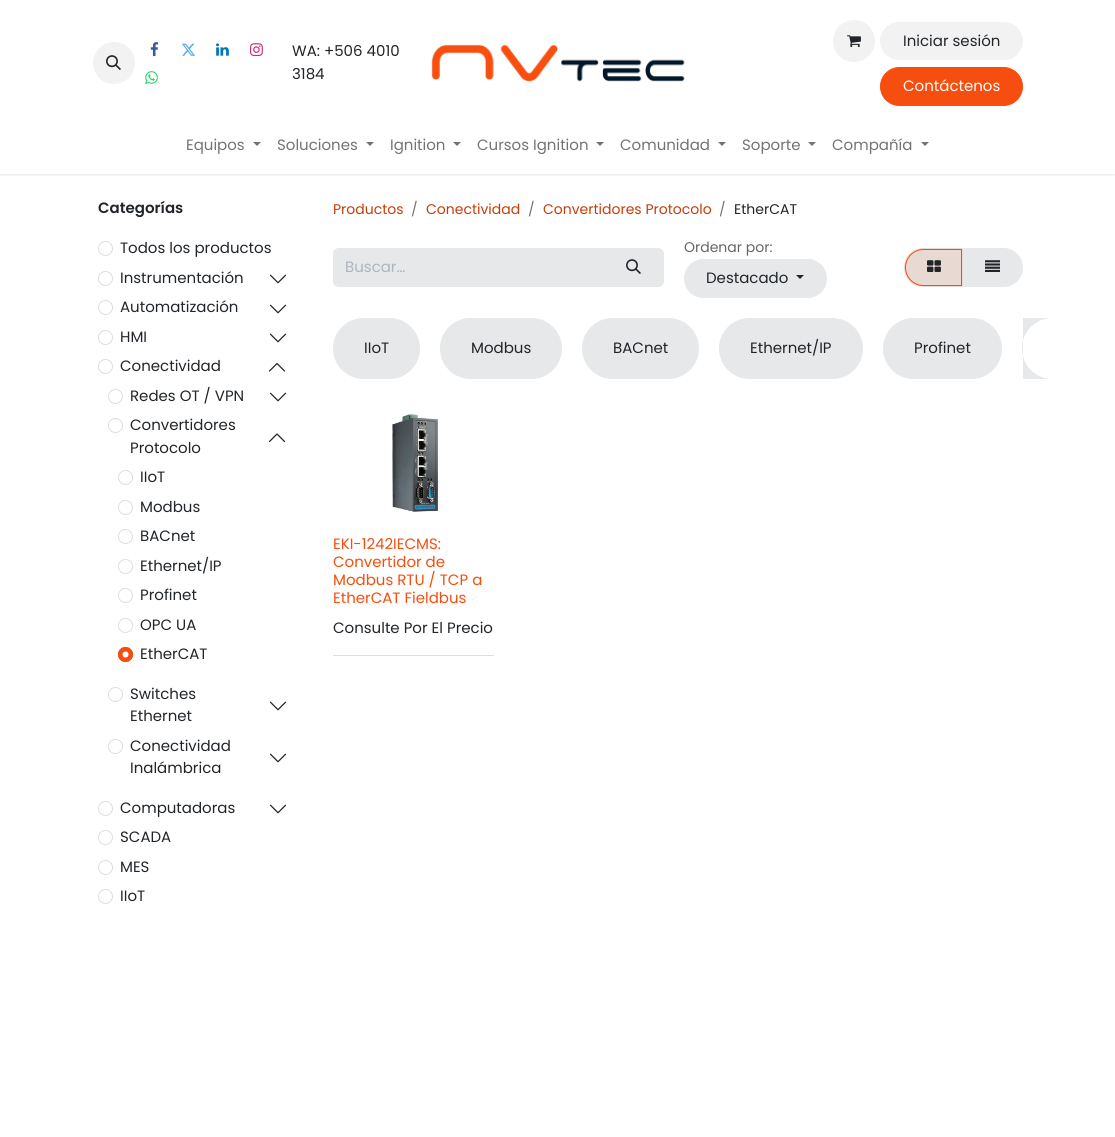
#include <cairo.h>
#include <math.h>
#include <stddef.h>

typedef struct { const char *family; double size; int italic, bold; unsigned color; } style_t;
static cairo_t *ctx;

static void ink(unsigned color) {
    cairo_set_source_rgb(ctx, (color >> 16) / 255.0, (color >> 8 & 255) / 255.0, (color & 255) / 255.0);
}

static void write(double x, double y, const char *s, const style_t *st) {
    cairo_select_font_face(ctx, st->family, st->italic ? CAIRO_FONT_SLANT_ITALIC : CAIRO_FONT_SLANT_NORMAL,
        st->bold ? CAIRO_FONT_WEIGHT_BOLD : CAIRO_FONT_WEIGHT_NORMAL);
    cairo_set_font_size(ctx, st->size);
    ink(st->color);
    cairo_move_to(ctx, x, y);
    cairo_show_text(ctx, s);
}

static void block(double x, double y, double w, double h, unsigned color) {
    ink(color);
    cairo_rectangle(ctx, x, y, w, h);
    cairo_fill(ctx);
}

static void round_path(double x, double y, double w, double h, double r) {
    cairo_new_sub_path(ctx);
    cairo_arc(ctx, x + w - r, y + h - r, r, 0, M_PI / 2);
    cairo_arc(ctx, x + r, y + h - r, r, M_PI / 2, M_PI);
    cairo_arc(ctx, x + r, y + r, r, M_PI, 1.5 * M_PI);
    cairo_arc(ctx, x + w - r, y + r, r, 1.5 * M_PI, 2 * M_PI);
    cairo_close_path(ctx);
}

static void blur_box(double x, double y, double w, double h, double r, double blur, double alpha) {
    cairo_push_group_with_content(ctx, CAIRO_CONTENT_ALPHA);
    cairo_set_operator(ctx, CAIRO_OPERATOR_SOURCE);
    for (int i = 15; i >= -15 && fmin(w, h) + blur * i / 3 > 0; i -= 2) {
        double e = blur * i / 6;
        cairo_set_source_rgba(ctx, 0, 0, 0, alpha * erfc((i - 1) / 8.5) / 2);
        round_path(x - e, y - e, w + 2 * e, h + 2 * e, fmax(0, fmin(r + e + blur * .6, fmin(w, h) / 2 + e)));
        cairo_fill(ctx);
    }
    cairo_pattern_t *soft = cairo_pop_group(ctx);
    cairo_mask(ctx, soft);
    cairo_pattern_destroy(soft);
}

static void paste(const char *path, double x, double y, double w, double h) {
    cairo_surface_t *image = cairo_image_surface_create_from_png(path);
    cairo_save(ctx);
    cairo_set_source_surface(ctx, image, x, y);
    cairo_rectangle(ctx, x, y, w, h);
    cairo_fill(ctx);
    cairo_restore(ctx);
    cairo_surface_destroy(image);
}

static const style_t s1 = {"Poppins", 15, 0, 0, 0x212529};
static const style_t s2 = {"Poppins", 15, 0, 0, 0xffffff};
static const style_t s3 = {"Poppins", 15, 0, 0, 0x737373};
static const style_t s4 = {"Poppins SemiBold", 15, 0, 0, 0x212529};
static const style_t s5 = {"Poppins", 14, 0, 0, 0xc53c07};
static const style_t s6 = {"Poppins", 14, 0, 0, 0x6c757d};
static const style_t s7 = {"Poppins", 14, 0, 0, 0x212529};
static const style_t s8 = {"Poppins", 15, 0, 0, 0xadb5bd};
static const style_t s9 = {"Poppins", 14, 0, 0, 0x646669};
static const style_t s10 = {"Poppins", 15, 0, 0, 0xf64e0e};

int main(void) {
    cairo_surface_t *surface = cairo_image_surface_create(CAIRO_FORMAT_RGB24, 1115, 1137);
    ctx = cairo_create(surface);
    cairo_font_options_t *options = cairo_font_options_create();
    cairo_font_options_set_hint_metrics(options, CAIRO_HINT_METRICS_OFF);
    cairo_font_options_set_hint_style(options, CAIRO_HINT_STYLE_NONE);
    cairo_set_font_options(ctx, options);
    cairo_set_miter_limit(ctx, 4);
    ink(0xffffff);
    cairo_paint(ctx);
    cairo_save(ctx);
    cairo_rectangle(ctx, 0, 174, 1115, 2);
    cairo_clip(ctx);
    ink(0x000000);
    blur_box(0, 1, 1115, 174, 0, 1.5, 0.1);
    cairo_restore(ctx);
    ink(0xf2f2f2);
    cairo_arc(ctx, 114, 63, 21, 0, 2 * M_PI);
    cairo_fill(ctx);
    paste("pic1.png", 106, 55, 15, 15);
    paste("pic2.png", 150, 42, 9, 15);
    paste("pic3.png", 181, 43, 14, 13);
    paste("pic4.png", 216, 43, 13, 13);
    paste("pic5.png", 250, 43, 13, 14);
    paste("pic6.png", 145, 71, 13, 13);
    write(292, 56, "WA: +506 4010", &s1);
    write(292, 79, "3184", &s1);
    paste("pic7.png", 431, 44, 254, 38);
    ink(0xf2f2f2);
    cairo_arc(ctx, 854, 41, 21, 0, 2 * M_PI);
    cairo_fill(ctx);
    paste("pic8.png", 847, 35, 14, 13);
    round_path(880, 22, 143, 38, 19);
    cairo_fill(ctx);
    write(903, 46, "Iniciar sesión", &s1);
    ink(0xf64e0e);
    round_path(880.5, 67.5, 142, 38, 19);
    cairo_fill_preserve(ctx);
    cairo_set_line_width(ctx, 1);
    cairo_stroke(ctx);
    write(903, 91, "Contáctenos", &s2);
    write(186, 150, "Equipos", &s3);
    cairo_new_path(ctx);
    cairo_move_to(ctx, 253, 142);
    cairo_line_to(ctx, 261, 142);
    cairo_line_to(ctx, 257, 146);
    cairo_close_path(ctx);
    cairo_fill(ctx);
    write(277, 150, "Soluciones", &s3);
    cairo_new_path(ctx);
    cairo_move_to(ctx, 366, 142);
    cairo_line_to(ctx, 374, 142);
    cairo_line_to(ctx, 370, 146);
    cairo_close_path(ctx);
    cairo_fill(ctx);
    write(390, 150, "Ignition", &s3);
    cairo_new_path(ctx);
    cairo_move_to(ctx, 453, 142);
    cairo_line_to(ctx, 461, 142);
    cairo_line_to(ctx, 457, 146);
    cairo_close_path(ctx);
    cairo_fill(ctx);
    write(477, 150, "Cursos Ignition", &s3);
    cairo_new_path(ctx);
    cairo_move_to(ctx, 596, 142);
    cairo_line_to(ctx, 604, 142);
    cairo_line_to(ctx, 600, 146);
    cairo_close_path(ctx);
    cairo_fill(ctx);
    write(620, 150, "Comunidad", &s3);
    cairo_new_path(ctx);
    cairo_move_to(ctx, 718, 142);
    cairo_line_to(ctx, 726, 142);
    cairo_line_to(ctx, 722, 146);
    cairo_close_path(ctx);
    cairo_fill(ctx);
    write(742, 150, "Soporte", &s3);
    cairo_new_path(ctx);
    cairo_move_to(ctx, 808, 142);
    cairo_line_to(ctx, 816, 142);
    cairo_line_to(ctx, 812, 146);
    cairo_close_path(ctx);
    cairo_fill(ctx);
    write(832, 150, "Compañía", &s3);
    cairo_new_path(ctx);
    cairo_move_to(ctx, 921, 142);
    cairo_line_to(ctx, 929, 142);
    cairo_line_to(ctx, 925, 146);
    cairo_close_path(ctx);
    cairo_fill(ctx);
    write(98, 213, "Categorías", &s4);
    cairo_new_path(ctx);
    cairo_arc(ctx, 105.5, 248.5, 7, 0, 2 * M_PI);
    ink(0xdededf);
    cairo_stroke(ctx);
    write(120, 253, "Todos los productos", &s1);
    cairo_new_path(ctx);
    cairo_arc(ctx, 105.5, 278.5, 7, 0, 2 * M_PI);
    ink(0xdededf);
    cairo_stroke(ctx);
    write(120, 283, "Instrumentación", &s1);
    paste("pic9.png", 269, 274, 18, 10);
    cairo_arc(ctx, 105.5, 307.5, 7, 0, 2 * M_PI);
    ink(0xdededf);
    cairo_stroke(ctx);
    write(120, 312, "Automatización", &s1);
    paste("pic9.png", 269, 304, 18, 10);
    cairo_arc(ctx, 105.5, 337.5, 7, 0, 2 * M_PI);
    ink(0xdededf);
    cairo_stroke(ctx);
    write(120, 342, "HMI", &s1);
    paste("pic9.png", 269, 333, 18, 10);
    cairo_arc(ctx, 105.5, 366.5, 7, 0, 2 * M_PI);
    ink(0xdededf);
    cairo_stroke(ctx);
    write(120, 371, "Conectividad", &s1);
    paste("pic10.png", 269, 363, 16, 9);
    cairo_arc(ctx, 115.5, 396.5, 7, 0, 2 * M_PI);
    ink(0xdededf);
    cairo_stroke(ctx);
    write(130, 401, "Redes OT / VPN", &s1);
    paste("pic9.png", 269, 392, 18, 10);
    cairo_arc(ctx, 115.5, 425.5, 7, 0, 2 * M_PI);
    ink(0xdededf);
    cairo_stroke(ctx);
    write(130, 430, "Convertidores", &s1);
    write(130, 453, "Protocolo", &s1);
    paste("pic11.png", 268, 433, 18, 10);
    cairo_arc(ctx, 125.5, 477.5, 7, 0, 2 * M_PI);
    ink(0xdededf);
    cairo_stroke(ctx);
    write(140, 482, "IIoT", &s1);
    cairo_new_path(ctx);
    cairo_arc(ctx, 125.5, 507.5, 7, 0, 2 * M_PI);
    ink(0xdededf);
    cairo_stroke(ctx);
    write(140, 512, "Modbus", &s1);
    cairo_new_path(ctx);
    cairo_arc(ctx, 125.5, 536.5, 7, 0, 2 * M_PI);
    ink(0xdededf);
    cairo_stroke(ctx);
    write(140, 541, "BACnet", &s1);
    cairo_new_path(ctx);
    cairo_arc(ctx, 125.5, 566.5, 7, 0, 2 * M_PI);
    ink(0xdededf);
    cairo_stroke(ctx);
    write(140, 571, "Ethernet/IP", &s1);
    cairo_new_path(ctx);
    cairo_arc(ctx, 125.5, 595.5, 7, 0, 2 * M_PI);
    ink(0xdededf);
    cairo_stroke(ctx);
    write(140, 600, "Profinet", &s1);
    cairo_new_path(ctx);
    cairo_arc(ctx, 125.5, 625.5, 7, 0, 2 * M_PI);
    ink(0xdededf);
    cairo_stroke(ctx);
    write(140, 630, "OPC UA", &s1);
    ink(0xf64e0e);
    cairo_new_path(ctx);
    cairo_arc(ctx, 125.5, 654.5, 7.5, 0, 2 * M_PI);
    cairo_fill(ctx);
    ink(0xffffff);
    cairo_arc(ctx, 125.5, 654.5, 3, 0, 2 * M_PI);
    cairo_fill(ctx);
    cairo_arc(ctx, 125.5, 654.5, 7, 0, 2 * M_PI);
    ink(0xf64e0e);
    cairo_stroke(ctx);
    write(140, 659, "EtherCAT", &s1);
    cairo_new_path(ctx);
    cairo_arc(ctx, 115.5, 694.5, 7, 0, 2 * M_PI);
    ink(0xdededf);
    cairo_stroke(ctx);
    write(130, 699, "Switches", &s1);
    write(130, 721, "Ethernet", &s1);
    paste("pic9.png", 269, 701, 18, 10);
    cairo_arc(ctx, 115.5, 746.5, 7, 0, 2 * M_PI);
    ink(0xdededf);
    cairo_stroke(ctx);
    write(130, 751, "Conectividad", &s1);
    write(130, 773, "Inalámbrica", &s1);
    paste("pic9.png", 269, 753, 18, 10);
    cairo_arc(ctx, 105.5, 808.5, 7, 0, 2 * M_PI);
    ink(0xdededf);
    cairo_stroke(ctx);
    write(120, 813, "Computadoras", &s1);
    paste("pic9.png", 269, 804, 18, 10);
    cairo_arc(ctx, 105.5, 837.5, 7, 0, 2 * M_PI);
    ink(0xdededf);
    cairo_stroke(ctx);
    write(120, 842, "SCADA", &s1);
    cairo_new_path(ctx);
    cairo_arc(ctx, 105.5, 867.5, 7, 0, 2 * M_PI);
    ink(0xdededf);
    cairo_stroke(ctx);
    write(120, 872, "MES", &s1);
    cairo_new_path(ctx);
    cairo_arc(ctx, 105.5, 896.5, 7, 0, 2 * M_PI);
    ink(0xdededf);
    cairo_stroke(ctx);
    write(120, 901, "IIoT", &s1);
    write(333, 214, "Productos", &s5);
    write(411, 214, "/", &s6);
    write(426, 214, "Conectividad", &s5);
    write(528, 214, "/", &s6);
    write(543, 214, "Convertidores Protocolo", &s5);
    write(719, 214, "/", &s6);
    write(734, 214, "EtherCAT", &s7);
    ink(0xe6e8e9);
    cairo_new_path(ctx);
    cairo_move_to(ctx, 339, 248);
    cairo_line_to(ctx, 604, 248);
    cairo_line_to(ctx, 604, 287);
    cairo_line_to(ctx, 339, 287);
    cairo_curve_to(ctx, 335.5, 287, 333, 284.5, 333, 281);
    cairo_line_to(ctx, 333, 254);
    cairo_curve_to(ctx, 333, 250.5, 335.5, 248, 339, 248);
    cairo_close_path(ctx);
    cairo_fill(ctx);
    write(345, 272, "Buscar…", &s8);
    ink(0xe6e8e9);
    cairo_new_path(ctx);
    cairo_move_to(ctx, 603.5, 248.5);
    cairo_line_to(ctx, 658, 248.5);
    cairo_curve_to(ctx, 661, 248.5, 663.5, 251, 663.5, 254);
    cairo_line_to(ctx, 663.5, 281);
    cairo_curve_to(ctx, 663.5, 284, 661, 286.5, 658, 286.5);
    cairo_line_to(ctx, 603.5, 286.5);
    cairo_close_path(ctx);
    cairo_fill_preserve(ctx);
    cairo_stroke(ctx);
    paste("pic12.png", 626, 259, 15, 15);
    write(684, 252, "Ordenar por:", &s9);
    ink(0xe6e8e9);
    round_path(684.5, 259.5, 142, 38, 19);
    cairo_fill_preserve(ctx);
    cairo_stroke(ctx);
    write(706, 283, "Destacado", &s1);
    cairo_new_path(ctx);
    cairo_move_to(ctx, 796, 275);
    cairo_line_to(ctx, 804, 275);
    cairo_line_to(ctx, 800, 279);
    cairo_close_path(ctx);
    cairo_fill(ctx);
    ink(0xe6e8e9);
    cairo_new_path(ctx);
    cairo_move_to(ctx, 962.5, 248.5);
    cairo_line_to(ctx, 1003.5, 248.5);
    cairo_curve_to(ctx, 1014, 248.5, 1022.5, 257, 1022.5, 267.5);
    cairo_curve_to(ctx, 1022.5, 278, 1014, 286.5, 1003.5, 286.5);
    cairo_line_to(ctx, 962.5, 286.5);
    cairo_close_path(ctx);
    cairo_fill_preserve(ctx);
    cairo_stroke(ctx);
    ink(0xe8d9d3);
    cairo_new_path(ctx);
    cairo_move_to(ctx, 923.5, 248);
    cairo_line_to(ctx, 963, 248);
    cairo_line_to(ctx, 963, 287);
    cairo_line_to(ctx, 923.5, 287);
    cairo_curve_to(ctx, 912.5, 287, 904, 278.5, 904, 267.5);
    cairo_curve_to(ctx, 904, 256.5, 912.5, 248, 923.5, 248);
    cairo_close_path(ctx);
    cairo_fill(ctx);
    cairo_new_path(ctx);
    cairo_move_to(ctx, 923.5, 249.5);
    cairo_line_to(ctx, 961.5, 249.5);
    cairo_line_to(ctx, 961.5, 285.5);
    cairo_line_to(ctx, 923.5, 285.5);
    cairo_curve_to(ctx, 913.5, 285.5, 905.5, 277.5, 905.5, 267.5);
    cairo_curve_to(ctx, 905.5, 257.5, 913.5, 249.5, 923.5, 249.5);
    cairo_close_path(ctx);
    ink(0xf64e0e);
    cairo_stroke(ctx);
    paste("pic13.png", 927, 260, 14, 12);
    paste("pic14.png", 985, 260, 15, 12);
    ink(0xe6e8e9);
    round_path(333.5, 318.5, 86, 60, 30);
    cairo_fill_preserve(ctx);
    cairo_stroke(ctx);
    write(364, 353, "IIoT", &s1);
    ink(0xe6e8e9);
    round_path(440.5, 318.5, 121, 60, 30);
    cairo_fill_preserve(ctx);
    cairo_stroke(ctx);
    write(471, 353, "Modbus", &s1);
    ink(0xe6e8e9);
    round_path(582.5, 318.5, 116, 60, 30);
    cairo_fill_preserve(ctx);
    cairo_stroke(ctx);
    write(613, 353, "BACnet", &s1);
    ink(0xe6e8e9);
    round_path(719.5, 318.5, 143, 60, 30);
    cairo_fill_preserve(ctx);
    cairo_stroke(ctx);
    write(750, 353, "Ethernet/IP", &s1);
    ink(0xe6e8e9);
    round_path(883.5, 318.5, 118, 60, 30);
    cairo_fill_preserve(ctx);
    cairo_stroke(ctx);
    write(914, 353, "Profinet", &s1);
    ink(0xe6e8e9);
    cairo_new_path(ctx);
    cairo_move_to(ctx, 1052.5, 318);
    cairo_line_to(ctx, 1023, 318);
    cairo_line_to(ctx, 1023, 379);
    cairo_line_to(ctx, 1052.5, 379);
    cairo_curve_to(ctx, 1035.5, 379, 1022, 365.5, 1022, 348.5);
    cairo_curve_to(ctx, 1022, 331.5, 1035.5, 318, 1052.5, 318);
    cairo_close_path(ctx);
    cairo_fill(ctx);
    cairo_save(ctx);
    cairo_rectangle(ctx, 333, 318, 690, 66);
    cairo_clip(ctx);
    round_path(1022.5, 318.5, 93, 60, 30);
    cairo_stroke(ctx);
    cairo_restore(ctx);
    block(333, 655, 161, 1, 0xdededf);
    paste("pic15.png", 392, 414, 47, 98);
    write(333, 549, "EKI-1242IECMS:", &s10);
    write(333, 567, "Convertidor de", &s10);
    write(333, 585, "Modbus RTU / TCP a", &s10);
    write(333, 603, "EtherCAT Fieldbus", &s10);
    write(333, 633, "Consulte Por El Precio", &s1);
    cairo_surface_write_to_png(surface, "screenshot.png");
    cairo_font_options_destroy(options);
    cairo_destroy(ctx);
    cairo_surface_destroy(surface);
    return 0;
}
